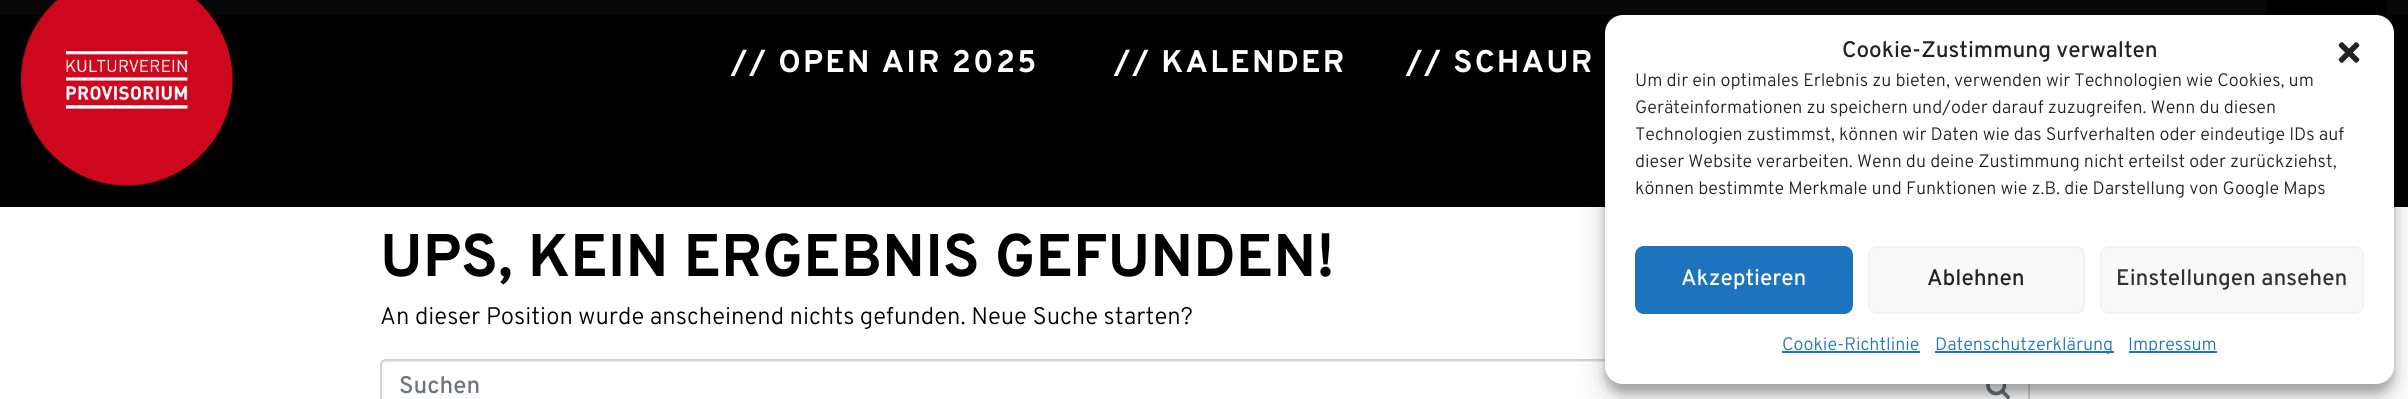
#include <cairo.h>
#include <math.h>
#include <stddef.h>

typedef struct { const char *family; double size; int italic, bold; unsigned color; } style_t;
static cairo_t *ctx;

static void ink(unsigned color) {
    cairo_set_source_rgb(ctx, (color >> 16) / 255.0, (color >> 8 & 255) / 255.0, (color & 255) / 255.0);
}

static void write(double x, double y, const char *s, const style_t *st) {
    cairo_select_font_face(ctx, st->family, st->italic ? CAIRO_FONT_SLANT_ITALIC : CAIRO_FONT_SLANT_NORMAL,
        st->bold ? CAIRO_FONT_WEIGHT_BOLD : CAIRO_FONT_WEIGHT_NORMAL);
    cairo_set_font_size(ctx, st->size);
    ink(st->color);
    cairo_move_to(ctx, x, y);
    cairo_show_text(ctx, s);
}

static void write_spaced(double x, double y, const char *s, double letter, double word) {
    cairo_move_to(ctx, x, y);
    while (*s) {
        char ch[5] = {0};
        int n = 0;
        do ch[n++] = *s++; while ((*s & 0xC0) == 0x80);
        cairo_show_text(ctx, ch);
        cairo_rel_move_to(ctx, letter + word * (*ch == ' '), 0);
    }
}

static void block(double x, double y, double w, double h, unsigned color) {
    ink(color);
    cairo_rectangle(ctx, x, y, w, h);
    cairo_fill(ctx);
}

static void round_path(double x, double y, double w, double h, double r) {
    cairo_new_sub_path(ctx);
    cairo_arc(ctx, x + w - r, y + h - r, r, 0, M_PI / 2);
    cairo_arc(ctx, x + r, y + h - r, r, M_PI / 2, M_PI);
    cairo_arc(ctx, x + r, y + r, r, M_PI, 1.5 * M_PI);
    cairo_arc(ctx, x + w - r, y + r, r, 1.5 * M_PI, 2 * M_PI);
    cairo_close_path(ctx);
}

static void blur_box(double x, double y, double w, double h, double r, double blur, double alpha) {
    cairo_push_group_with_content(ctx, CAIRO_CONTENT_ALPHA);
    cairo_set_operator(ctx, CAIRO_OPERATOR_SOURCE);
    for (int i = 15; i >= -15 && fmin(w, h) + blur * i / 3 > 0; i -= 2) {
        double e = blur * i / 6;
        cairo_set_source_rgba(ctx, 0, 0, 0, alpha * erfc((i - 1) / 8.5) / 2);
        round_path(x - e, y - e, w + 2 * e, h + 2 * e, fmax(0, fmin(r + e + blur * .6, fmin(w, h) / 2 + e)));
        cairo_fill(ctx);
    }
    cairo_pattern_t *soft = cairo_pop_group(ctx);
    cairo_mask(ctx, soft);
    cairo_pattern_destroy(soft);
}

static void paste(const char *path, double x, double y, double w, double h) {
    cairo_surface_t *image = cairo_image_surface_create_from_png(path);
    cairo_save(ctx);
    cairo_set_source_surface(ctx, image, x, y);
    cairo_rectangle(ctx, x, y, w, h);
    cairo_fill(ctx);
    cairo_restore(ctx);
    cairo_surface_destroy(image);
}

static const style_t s1 = {"Overpass", 60, 0, 1, 0x000000};
static const style_t s2 = {"Overpass Light", 24, 0, 0, 0x000000};
static const style_t s3 = {"Overpass Medium", 24, 0, 0, 0x6c757d};
static const style_t s4 = {"Overpass Medium", 22.5, 0, 0, 0x222222};
static const style_t s5 = {"Overpass Light", 18, 0, 0, 0x222222};
static const style_t s6 = {"Overpass Medium", 22.5, 0, 0, 0xffffff};
static const style_t s7 = {"Overpass Medium", 22.5, 0, 0, 0x333333};
static const style_t s8 = {"Overpass Light", 18, 0, 0, 0x1e73be};

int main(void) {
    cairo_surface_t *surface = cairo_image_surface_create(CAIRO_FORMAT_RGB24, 2408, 399);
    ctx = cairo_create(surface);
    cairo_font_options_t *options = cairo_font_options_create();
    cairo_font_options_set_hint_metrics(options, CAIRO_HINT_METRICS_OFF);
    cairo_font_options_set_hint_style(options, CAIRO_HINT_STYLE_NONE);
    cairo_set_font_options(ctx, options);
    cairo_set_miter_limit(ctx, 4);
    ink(0xffffff);
    cairo_paint(ctx);
    block(0, 0, 2408, 15, 0x070707);
    block(2267, 0, 120, 14, 0x000000);
    block(0, 15, 2408, 192, 0x000000);
    paste("pic1.png", 21, 0, 212, 186);
    cairo_select_font_face(ctx, "Overpass", CAIRO_FONT_SLANT_NORMAL, CAIRO_FONT_WEIGHT_BOLD);
    cairo_set_font_size(ctx, 31.25);
    ink(0xffffff);
    write_spaced(731, 72, "// OPEN AIR 2025", 2.25, 0);
    write_spaced(1114, 72, "// KALENDER", 2.25, 0);
    write_spaced(1406, 72, "// SCHAUR", 2.25, 0);
    write(380, 276, "UPS, KEIN ERGEBNIS GEFUNDEN!", &s1);
    write(380, 324, "An dieser Position wurde anscheinend nichts gefunden. Neue Suche starten?", &s2);
    ink(0xececec);
    cairo_new_path(ctx);
    cairo_move_to(ctx, 386, 362);
    cairo_line_to(ctx, 2024, 362);
    cairo_curve_to(ctx, 2026, 362, 2028, 364, 2028, 366);
    cairo_line_to(ctx, 2028, 365);
    cairo_curve_to(ctx, 2028, 362, 2026, 360, 2023, 360);
    cairo_line_to(ctx, 386, 360);
    cairo_curve_to(ctx, 383, 360, 381, 362, 381, 365);
    cairo_line_to(ctx, 381, 366);
    cairo_curve_to(ctx, 381, 364, 383, 362, 386, 362);
    cairo_close_path(ctx);
    cairo_fill(ctx);
    round_path(381, 360, 1648, 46, 5);
    ink(0xced4da);
    cairo_stroke(ctx);
    write(399, 393, "Suchen", &s3);
    paste("pic2.png", 1986, 384, 24, 15);
    ink(0x000000);
    blur_box(1605, 24, 789, 369, 18, 4.5, 0.23);
    blur_box(1605, 30, 789, 369, 18, 15, 0.19);
    ink(0xffffff);
    round_path(1605, 15, 789, 369, 18);
    cairo_fill(ctx);
    write(1842, 57, "Cookie-Zustimmung verwalten", &s4);
    paste("pic3.png", 2338, 42, 22, 21);
    write(1635, 86, "Um dir ein optimales Erlebnis zu bieten, verwenden wir Technologien wie Cookies, um", &s5);
    write(1635, 113, "Geräteinformationen zu speichern und/oder darauf zuzugreifen. Wenn du diesen", &s5);
    write(1635, 140, "Technologien zustimmst, können wir Daten wie das Surfverhalten oder eindeutige IDs auf", &s5);
    write(1635, 167, "dieser Website verarbeiten. Wenn du deine Zustimmung nicht erteilst oder zurückziehst,", &s5);
    write(1635, 194, "können bestimmte Merkmale und Funktionen wie z.B. die Darstellung von Google Maps", &s5);
    ink(0x1e73be);
    round_path(1636, 247, 216, 66, 8);
    cairo_fill_preserve(ctx);
    cairo_stroke(ctx);
    write(1681, 285, "Akzeptieren", &s6);
    ink(0xf9f9f9);
    round_path(1869, 247, 215, 66, 8);
    cairo_fill_preserve(ctx);
    ink(0xf2f2f2);
    cairo_stroke(ctx);
    write(1927, 285, "Ablehnen", &s4);
    ink(0xf9f9f9);
    round_path(2101, 247, 262, 66, 8);
    cairo_fill_preserve(ctx);
    ink(0xf2f2f2);
    cairo_stroke(ctx);
    write(2116, 285, "Einstellungen ansehen", &s7);
    write(1782, 350, "Cookie-Richtlinie", &s8);
    block(1782, 351, 138, 2, 0x1e73be);
    block(1935, 351, 179, 2, 0x1e73be);
    write(1935, 350, "Datenschutzerklärung", &s8);
    block(2129, 351, 88, 2, 0x1e73be);
    write(2128, 350, "Impressum", &s8);
    cairo_surface_write_to_png(surface, "screenshot.png");
    cairo_font_options_destroy(options);
    cairo_destroy(ctx);
    cairo_surface_destroy(surface);
    return 0;
}
